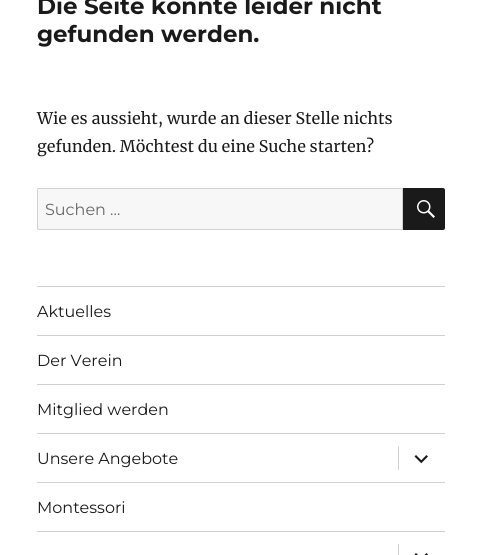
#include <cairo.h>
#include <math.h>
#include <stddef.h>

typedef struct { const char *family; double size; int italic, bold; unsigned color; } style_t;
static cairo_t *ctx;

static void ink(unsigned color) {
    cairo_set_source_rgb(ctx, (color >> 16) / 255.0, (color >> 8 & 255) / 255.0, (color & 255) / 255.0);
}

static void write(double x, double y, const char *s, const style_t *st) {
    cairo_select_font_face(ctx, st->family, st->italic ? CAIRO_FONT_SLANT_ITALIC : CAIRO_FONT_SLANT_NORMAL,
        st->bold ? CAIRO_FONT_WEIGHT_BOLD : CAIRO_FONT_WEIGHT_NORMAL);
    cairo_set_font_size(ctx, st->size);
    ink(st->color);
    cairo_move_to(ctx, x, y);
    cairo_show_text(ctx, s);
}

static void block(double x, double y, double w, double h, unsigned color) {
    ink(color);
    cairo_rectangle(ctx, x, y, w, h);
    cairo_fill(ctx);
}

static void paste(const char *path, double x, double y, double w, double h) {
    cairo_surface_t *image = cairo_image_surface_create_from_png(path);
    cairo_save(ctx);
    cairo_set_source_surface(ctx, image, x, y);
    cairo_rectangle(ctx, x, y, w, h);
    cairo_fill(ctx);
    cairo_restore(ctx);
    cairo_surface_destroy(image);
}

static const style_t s1 = {"Montserrat Thin", 23, 0, 0, 0x1a1a1a};
static const style_t s2 = {"Merriweather", 16, 0, 0, 0x1a1a1a};
static const style_t s3 = {"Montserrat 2 Thin", 16, 0, 0, 0x686868};
static const style_t s4 = {"Montserrat 2 Thin", 16, 0, 0, 0x1a1a1a};

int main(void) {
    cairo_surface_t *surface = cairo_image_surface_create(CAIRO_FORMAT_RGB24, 482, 555);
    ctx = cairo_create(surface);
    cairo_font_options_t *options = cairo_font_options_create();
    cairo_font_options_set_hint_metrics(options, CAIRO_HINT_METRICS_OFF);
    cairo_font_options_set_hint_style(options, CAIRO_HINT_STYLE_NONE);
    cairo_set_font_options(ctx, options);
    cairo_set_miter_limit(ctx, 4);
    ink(0xffffff);
    cairo_paint(ctx);
    write(37, 14, "Die Seite konnte leider nicht", &s1);
    write(37, 42, "gefunden werden.", &s1);
    write(37, 124, "Wie es aussieht, wurde an dieser Stelle nichts", &s2);
    write(37, 152, "gefunden. Möchtest du eine Suche starten?", &s2);
    ink(0xf7f7f7);
    cairo_new_path(ctx);
    cairo_move_to(ctx, 39, 188.5);
    cairo_line_to(ctx, 402.5, 188.5);
    cairo_line_to(ctx, 402.5, 229.5);
    cairo_line_to(ctx, 39, 229.5);
    cairo_curve_to(ctx, 38, 229.5, 37.5, 229, 37.5, 228);
    cairo_line_to(ctx, 37.5, 190);
    cairo_curve_to(ctx, 37.5, 189, 38, 188.5, 39, 188.5);
    cairo_close_path(ctx);
    cairo_fill_preserve(ctx);
    ink(0xd1d1d1);
    cairo_set_line_width(ctx, 1);
    cairo_stroke(ctx);
    write(45, 215, "Suchen …", &s3);
    ink(0x1a1a1a);
    cairo_new_path(ctx);
    cairo_move_to(ctx, 403, 188);
    cairo_line_to(ctx, 443, 188);
    cairo_curve_to(ctx, 444, 188, 445, 189, 445, 190);
    cairo_line_to(ctx, 445, 228);
    cairo_curve_to(ctx, 445, 229, 444, 230, 443, 230);
    cairo_line_to(ctx, 403, 230);
    cairo_close_path(ctx);
    cairo_fill(ctx);
    paste("pic1.png", 417, 200, 18, 18);
    block(37, 286, 408, 1, 0xd1d1d1);
    write(37, 317, "Aktuelles", &s4);
    block(37, 335, 408, 1, 0xd1d1d1);
    write(37, 366, "Der Verein", &s4);
    block(37, 384, 408, 1, 0xd1d1d1);
    write(37, 415, "Mitglied werden", &s4);
    block(37, 433, 408, 1, 0xd1d1d1);
    write(37, 464, "Unsere Angebote", &s4);
    block(398, 446, 1, 24, 0xd1d1d1);
    paste("pic2.png", 414, 455, 14, 9);
    block(37, 482, 408, 1, 0xd1d1d1);
    write(37, 513, "Montessori", &s4);
    block(37, 531, 408, 1, 0xd1d1d1);
    block(398, 544, 1, 11, 0xd1d1d1);
    paste("pic3.png", 414, 553, 14, 2);
    cairo_surface_write_to_png(surface, "screenshot.png");
    cairo_font_options_destroy(options);
    cairo_destroy(ctx);
    cairo_surface_destroy(surface);
    return 0;
}
